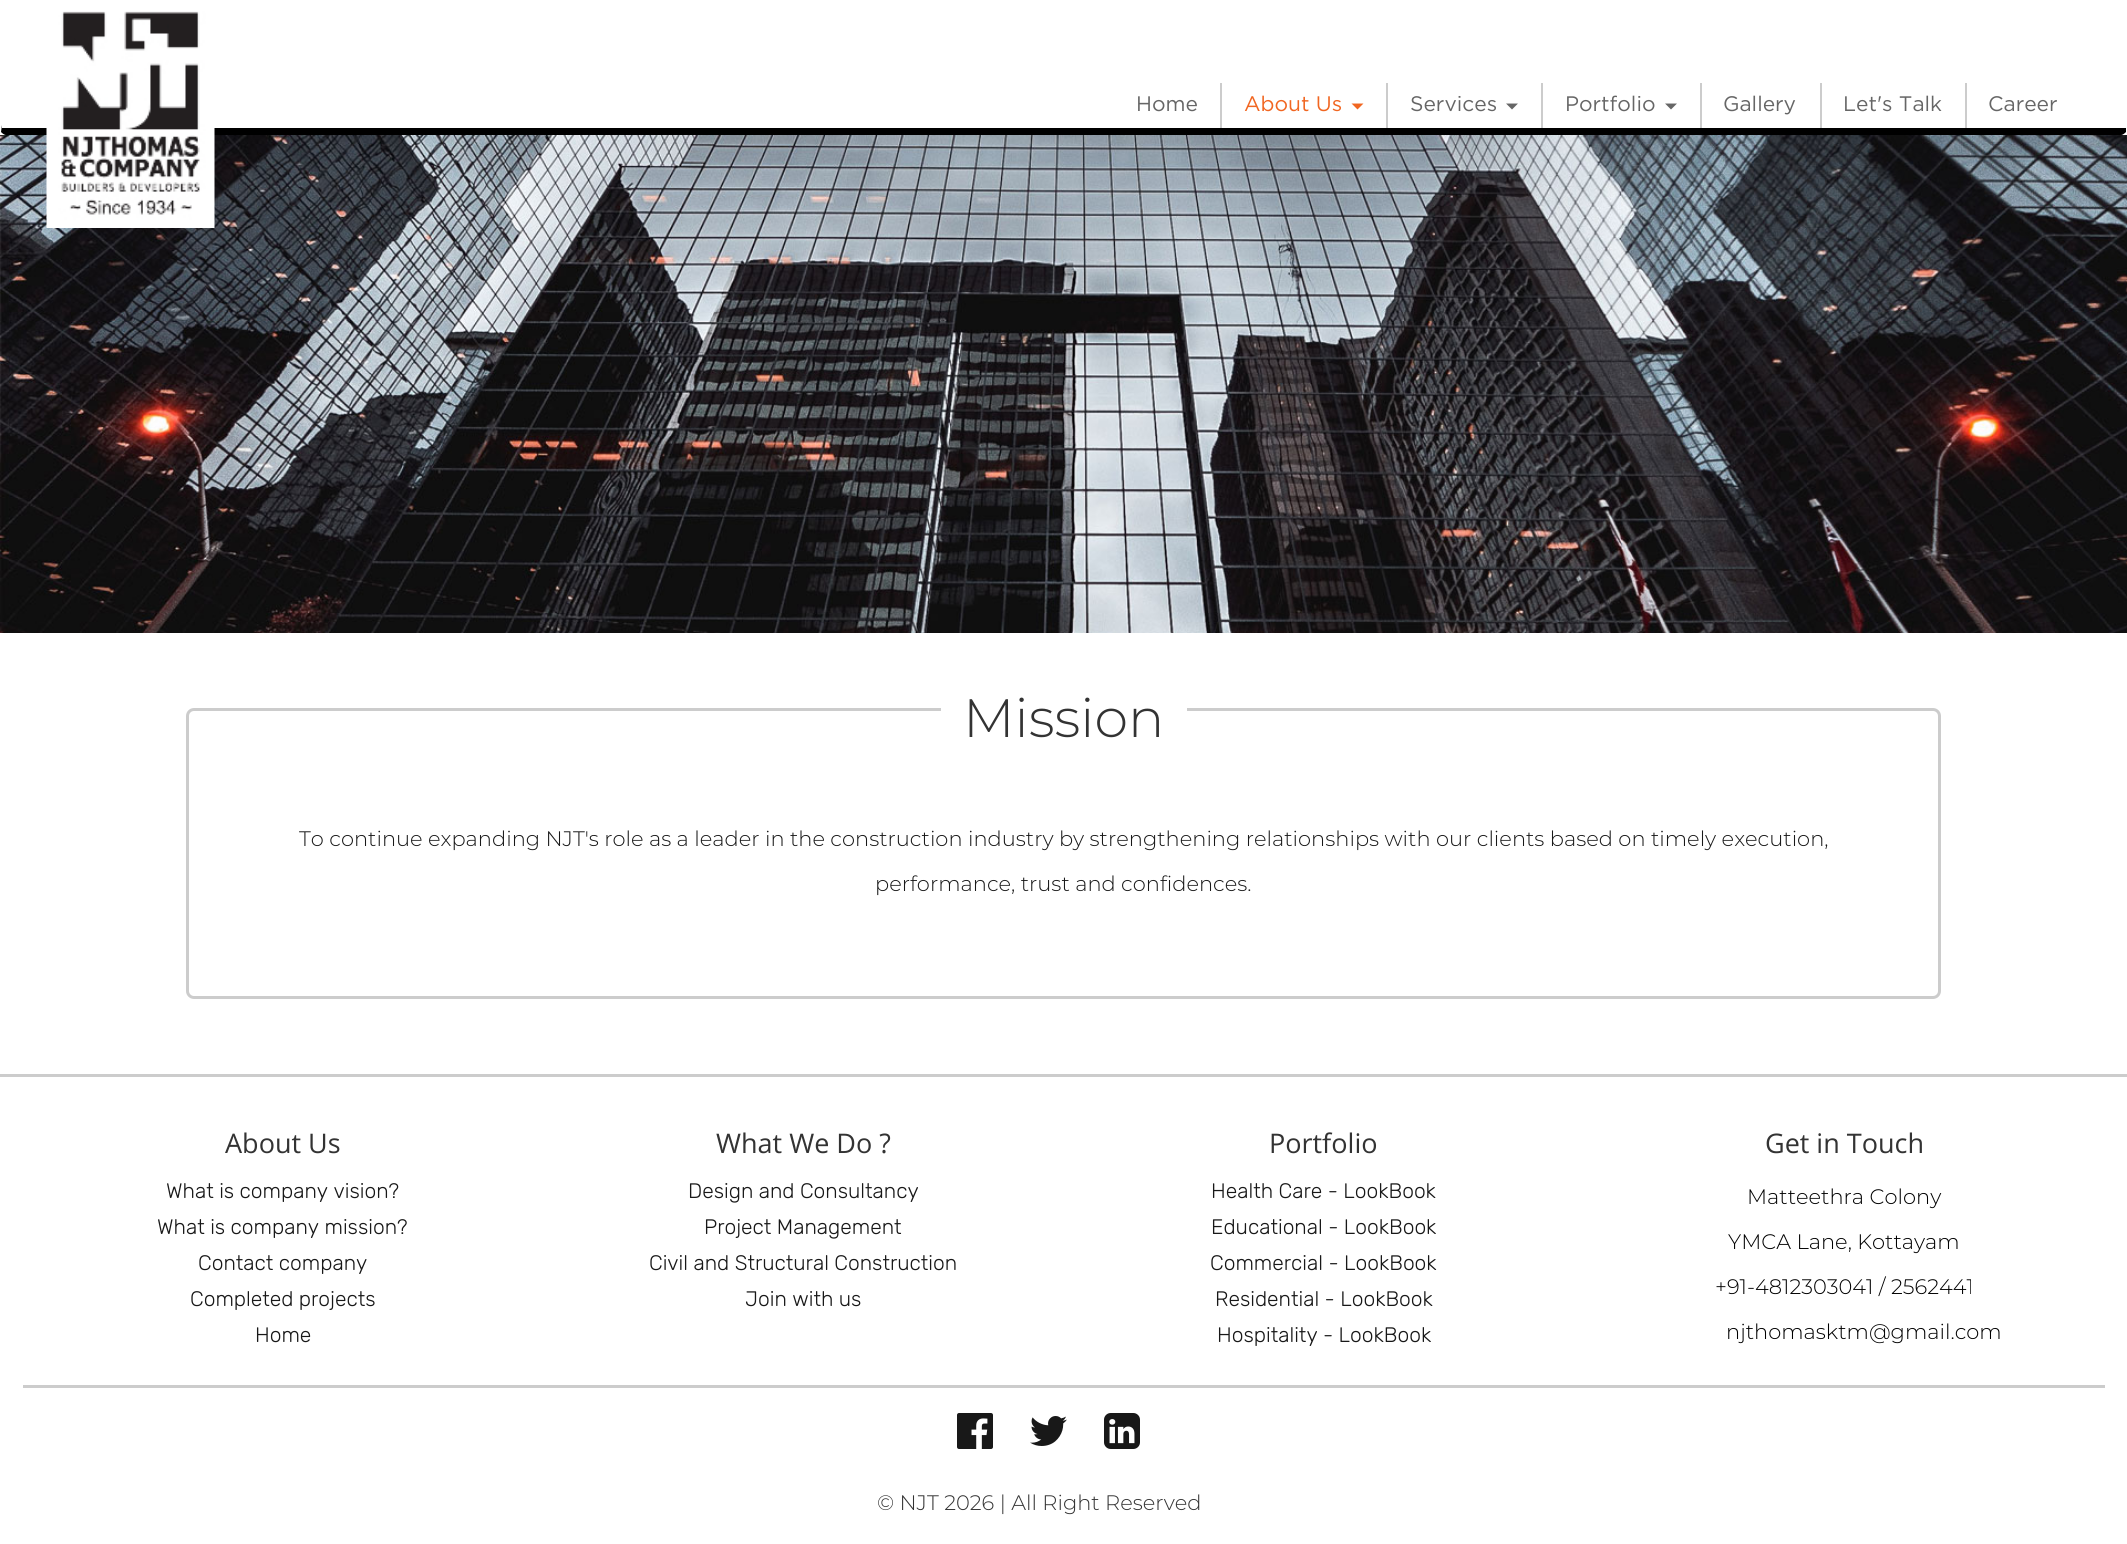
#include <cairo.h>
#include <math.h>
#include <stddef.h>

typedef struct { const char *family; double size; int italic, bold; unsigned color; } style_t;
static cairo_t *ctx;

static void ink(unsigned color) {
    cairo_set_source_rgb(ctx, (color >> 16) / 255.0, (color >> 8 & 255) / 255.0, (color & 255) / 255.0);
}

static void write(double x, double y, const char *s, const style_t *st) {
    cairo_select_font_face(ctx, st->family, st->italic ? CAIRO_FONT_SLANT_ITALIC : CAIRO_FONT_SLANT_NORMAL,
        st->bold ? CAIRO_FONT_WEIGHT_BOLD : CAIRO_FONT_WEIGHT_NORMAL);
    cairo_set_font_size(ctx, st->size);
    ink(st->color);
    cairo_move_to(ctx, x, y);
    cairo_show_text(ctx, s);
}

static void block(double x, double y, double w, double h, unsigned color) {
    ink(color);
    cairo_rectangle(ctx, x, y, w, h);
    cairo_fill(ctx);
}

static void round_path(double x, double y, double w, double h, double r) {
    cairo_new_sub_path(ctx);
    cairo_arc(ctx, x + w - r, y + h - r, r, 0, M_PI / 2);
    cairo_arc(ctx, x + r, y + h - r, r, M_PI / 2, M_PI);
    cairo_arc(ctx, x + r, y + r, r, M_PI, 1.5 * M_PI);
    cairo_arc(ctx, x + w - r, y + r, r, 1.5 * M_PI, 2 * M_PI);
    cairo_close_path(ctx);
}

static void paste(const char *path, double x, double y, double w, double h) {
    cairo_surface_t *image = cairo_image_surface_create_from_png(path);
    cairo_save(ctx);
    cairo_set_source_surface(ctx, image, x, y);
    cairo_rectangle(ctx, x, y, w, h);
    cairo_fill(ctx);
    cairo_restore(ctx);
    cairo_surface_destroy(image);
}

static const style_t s1 = {"Gotham", 21, 0, 0, 0x666666};
static const style_t s2 = {"Gotham", 21, 0, 0, 0xf16621};
static const style_t s3 = {"Montserrat Light", 54, 0, 0, 0x333333};
static const style_t s4 = {"Montserrat Light", 21, 0, 0, 0x181818};
static const style_t s5 = {"Open Sans", 27, 0, 0, 0x333333};
static const style_t s6 = {"Rubik Light", 21, 0, 0, 0x181818};
static const style_t s7 = {"Montserrat Light", 21, 0, 0, 0x000000};
static const style_t s8 = {"Montserrat Light", 21, 0, 0, 0x333333};

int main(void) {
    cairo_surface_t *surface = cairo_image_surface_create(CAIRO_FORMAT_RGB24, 2127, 1544);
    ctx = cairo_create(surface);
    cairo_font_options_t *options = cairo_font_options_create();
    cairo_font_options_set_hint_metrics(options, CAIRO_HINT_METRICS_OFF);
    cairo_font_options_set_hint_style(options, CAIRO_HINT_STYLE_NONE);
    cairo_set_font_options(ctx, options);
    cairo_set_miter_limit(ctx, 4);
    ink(0xffffff);
    cairo_paint(ctx);
    ink(0x000000);
    cairo_new_path(ctx);
    cairo_move_to(ctx, 6, 135);
    cairo_line_to(ctx, 2121, 135);
    cairo_curve_to(ctx, 2123, 135, 2125, 133, 2126, 132);
    cairo_line_to(ctx, 2126, 128);
    cairo_line_to(ctx, 2, 128);
    cairo_line_to(ctx, 2, 125);
    cairo_line_to(ctx, 1, 132);
    cairo_curve_to(ctx, 2, 133, 4, 135, 6, 135);
    cairo_close_path(ctx);
    cairo_fill(ctx);
    paste("pic2.png", 0, 135, 2127, 498);
    paste("pic1.png", 46, 11, 169, 217);
    block(1220, 83, 2, 45, 0xcccccc);
    write(1136, 111, "Home", &s1);
    block(1386, 83, 2, 45, 0xcccccc);
    write(1244, 111, "About Us", &s2);
    cairo_new_path(ctx);
    cairo_move_to(ctx, 1351.5, 103.5);
    cairo_line_to(ctx, 1363.5, 103.5);
    cairo_line_to(ctx, 1357.5, 109.5);
    cairo_close_path(ctx);
    cairo_fill(ctx);
    block(1541, 83, 2, 45, 0xcccccc);
    write(1410, 111, "Services", &s1);
    cairo_new_path(ctx);
    cairo_move_to(ctx, 1506, 103.5);
    cairo_line_to(ctx, 1518, 103.5);
    cairo_line_to(ctx, 1512, 109.5);
    cairo_close_path(ctx);
    cairo_fill(ctx);
    block(1700, 83, 2, 45, 0xcccccc);
    write(1565, 111, "Portfolio", &s1);
    cairo_new_path(ctx);
    cairo_move_to(ctx, 1665, 103.5);
    cairo_line_to(ctx, 1677, 103.5);
    cairo_line_to(ctx, 1671, 109.5);
    cairo_close_path(ctx);
    cairo_fill(ctx);
    block(1820, 83, 2, 45, 0xcccccc);
    write(1723, 111, "Gallery", &s1);
    block(1965, 83, 2, 45, 0xcccccc);
    write(1843, 111, "Let's Talk", &s1);
    write(1988, 111, "Career", &s1);
    round_path(187.5, 709.5, 1752, 288, 6.5);
    ink(0xcccccc);
    cairo_set_line_width(ctx, 3);
    cairo_stroke(ctx);
    block(941, 708, 246, 3, 0xffffff);
    write(963, 737, "Mission", &s3);
    write(299, 846, "To continue expanding NJT's role as a leader in the construction industry by strengthening relationships with our clients based on timely execution,", &s4);
    write(875, 891, "performance, trust and confidences.", &s4);
    block(0, 1074, 2127, 3, 0xcccccc);
    write(225, 1153, "About Us", &s5);
    write(166, 1198, "What is company vision?", &s6);
    write(157, 1234, "What is company mission?", &s6);
    write(198, 1270, "Contact company", &s6);
    write(190, 1306, "Completed projects", &s6);
    write(255, 1342, "Home", &s6);
    write(716, 1153, "What We Do ?", &s5);
    write(688, 1198, "Design and Consultancy", &s6);
    write(704, 1234, "Project Management", &s6);
    write(649, 1270, "Civil and Structural Construction", &s6);
    write(745, 1306, "Join with us", &s6);
    write(1269, 1153, "Portfolio", &s5);
    write(1211, 1198, "Health Care - LookBook", &s6);
    write(1211, 1234, "Educational - LookBook", &s6);
    write(1210, 1270, "Commercial - LookBook", &s6);
    write(1215, 1306, "Residential - LookBook", &s6);
    write(1217, 1342, "Hospitality - LookBook", &s6);
    write(1765, 1153, "Get in Touch", &s5);
    write(1747, 1204, "Matteethra Colony", &s7);
    write(1728, 1249, "YMCA Lane, Kottayam", &s7);
    write(1715, 1294, "+91-4812303041 / 2562441", &s7);
    write(1726, 1339, "njthomasktm@gmail.com", &s7);
    block(23, 1385, 2082, 3, 0xcccccc);
    paste("pic3.png", 957, 1413, 36, 36);
    paste("pic4.png", 1030, 1416, 37, 30);
    paste("pic5.png", 1104, 1413, 36, 36);
    write(877, 1510, "© NJT 2026 | All Right Reserved", &s8);
    cairo_surface_write_to_png(surface, "screenshot.png");
    cairo_font_options_destroy(options);
    cairo_destroy(ctx);
    cairo_surface_destroy(surface);
    return 0;
}
